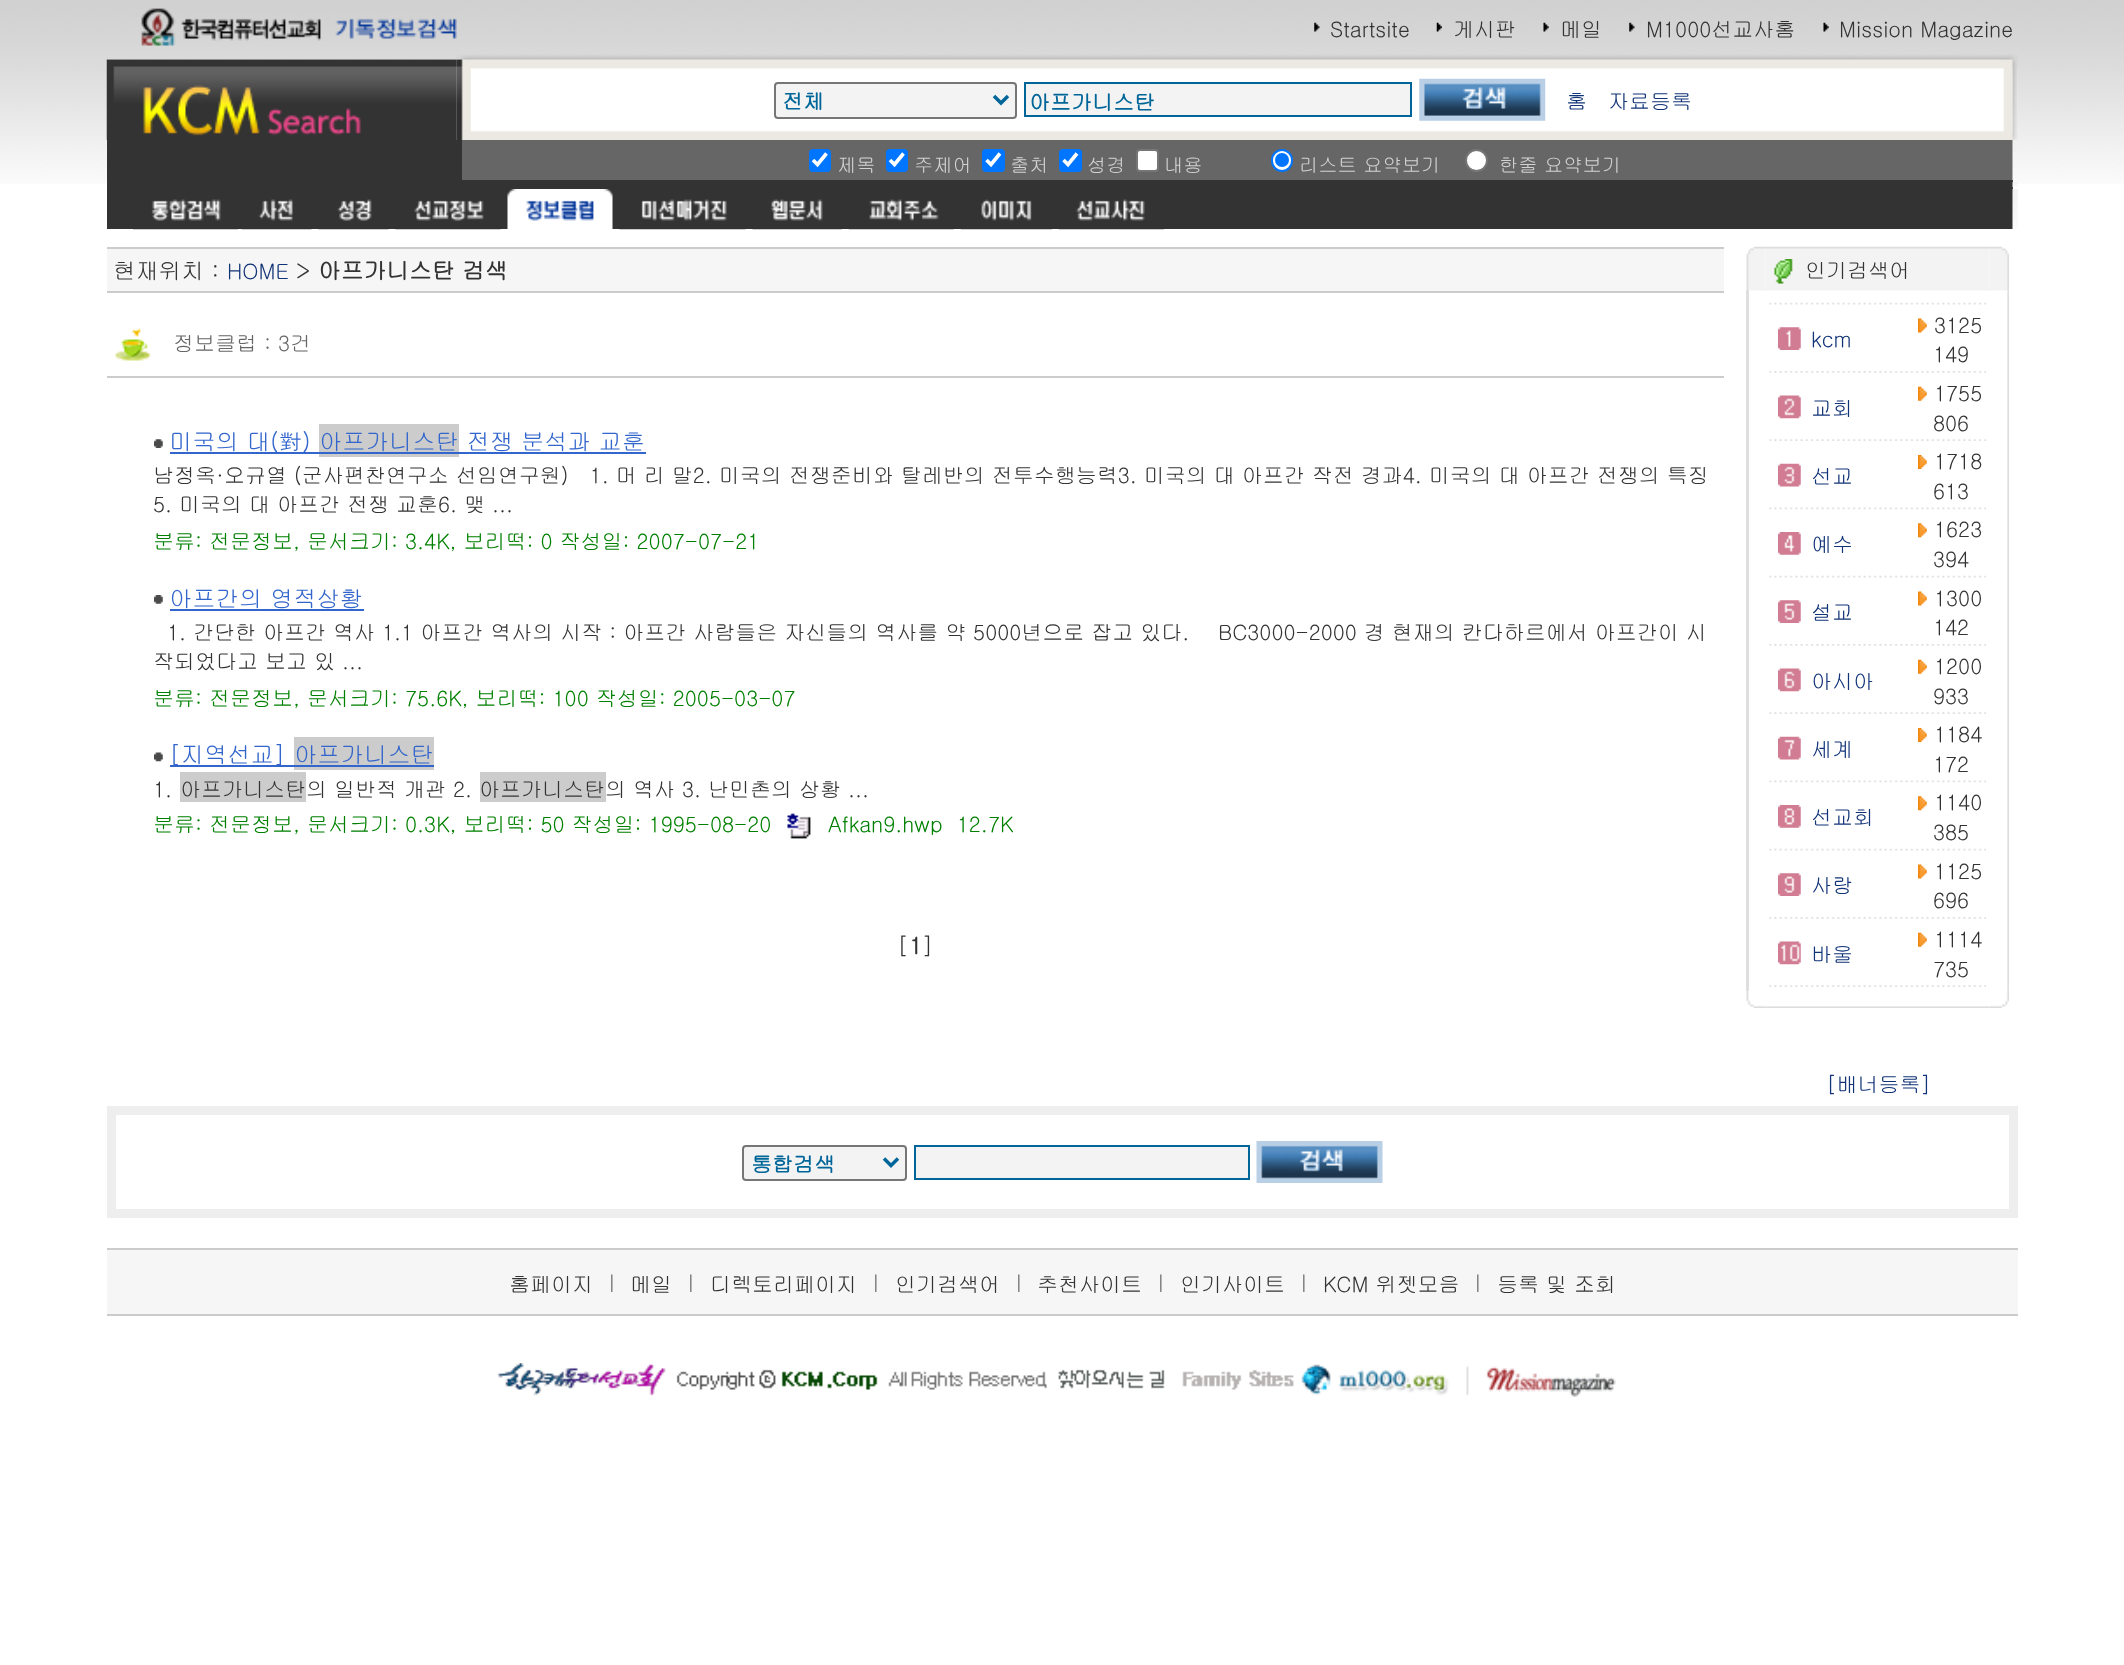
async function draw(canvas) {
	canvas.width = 2124;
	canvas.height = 1665;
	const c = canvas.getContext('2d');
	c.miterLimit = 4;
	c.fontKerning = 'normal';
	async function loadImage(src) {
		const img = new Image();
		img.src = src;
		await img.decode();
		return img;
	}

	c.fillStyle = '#fff';
	c.fillRect(0, 0, 2124, 1665);
	c.drawImage(await loadImage('img1.png'), 0, 0, 2124, 184);
	c.drawImage(await loadImage('img2.png'), 141, 8, 316, 38);
	c.drawImage(await loadImage('img3.png'), 1314, 22, 6, 10);
	c.font = '21px Gulim';
	c.fillStyle = '#333';
	c.fillText('Startsite', 1330, 37);
	c.drawImage(await loadImage('img4.png'), 1436, 22, 6, 10);
	c.fillText('게시판', 1453, 37);
	c.drawImage(await loadImage('img5.png'), 1543, 22, 6, 10);
	c.fillText('메일', 1560, 37);
	c.drawImage(await loadImage('img6.png'), 1629, 22, 6, 10);
	c.fillText('M1000선교사홈', 1646, 37);
	c.drawImage(await loadImage('img5.png'), 1823, 22, 6, 10);
	c.fillText('Mission Magazine', 1839, 37);
	c.drawImage(await loadImage('img8.png'), 456, 54, 1562, 86);
	c.drawImage(await loadImage('img7.png'), 106, 59, 351, 81);
	c.drawImage(await loadImage('img9.png'), 456, 55, 15, 85);
	c.fillStyle = '#f3f3f3';
	c.beginPath();
	c.roundRect(775, 83, 241, 35, 3);
	c.fill();
	c.strokeStyle = '#767676';
	c.lineWidth = 2;
	c.stroke();
	c.beginPath();
	c.moveTo(994, 96);
	c.lineTo(1001, 103);
	c.lineTo(1008, 96);
	c.strokeStyle = '#069';
	c.lineWidth = 3.5;
	c.stroke();
	c.font = 'bold 21px Gulim';
	c.fillStyle = '#069';
	c.fillText('전체', 782, 109);
	c.fillStyle = '#f3f3f3';
	c.beginPath();
	c.rect(1025, 83, 386, 33);
	c.fill();
	c.lineWidth = 2;
	c.stroke();
	c.fillStyle = '#069';
	c.fillText('아프가니스탄', 1029, 110);
	c.drawImage(await loadImage('img10.png'), 1419, 78, 127, 43);
	c.font = '21px Gulim';
	c.fillStyle = '#137';
	c.fillText('홈', 1566, 109);
	c.fillText('자료등록', 1608, 109);
	c.drawImage(await loadImage('img11.png'), 2003, 57, 10, 75);
	c.drawImage(await loadImage('img12.png'), 2012, 55, 6, 85);
	c.fillStyle = '#333';
	c.fillRect(107, 140, 355, 40);
	c.fillStyle = '#666';
	c.fillRect(462, 140, 1551, 40);
	c.fillStyle = '#0075ff';
	c.beginPath();
	c.roundRect(809, 149, 22, 23, 4);
	c.fill();
	c.beginPath();
	c.moveTo(813, 160);
	c.lineTo(817.5, 164.5);
	c.lineTo(826.5, 153.5);
	c.strokeStyle = '#fff';
	c.lineWidth = 3.6;
	c.stroke();
	c.font = '19.25px Gulim';
	c.fillStyle = '#d2d2d2';
	c.fillText('제목', 837, 172);
	c.fillStyle = '#0075ff';
	c.beginPath();
	c.roundRect(886, 149, 22, 23, 4);
	c.fill();
	c.beginPath();
	c.moveTo(890, 160);
	c.lineTo(894.5, 164.5);
	c.lineTo(903.5, 153.5);
	c.stroke();
	c.fillStyle = '#d2d2d2';
	c.fillText('주제어', 914, 172);
	c.fillStyle = '#0075ff';
	c.beginPath();
	c.roundRect(982, 149, 23, 23, 4);
	c.fill();
	c.beginPath();
	c.moveTo(986.5, 160);
	c.lineTo(991, 164.5);
	c.lineTo(1000, 153.5);
	c.stroke();
	c.fillStyle = '#d2d2d2';
	c.fillText('출처', 1010, 172);
	c.fillStyle = '#0075ff';
	c.beginPath();
	c.roundRect(1059, 149, 23, 23, 4);
	c.fill();
	c.beginPath();
	c.moveTo(1063.5, 160);
	c.lineTo(1068, 164.5);
	c.lineTo(1077, 153.5);
	c.stroke();
	c.fillStyle = '#d2d2d2';
	c.fillText('성경', 1087, 172);
	c.fillStyle = '#fff';
	c.beginPath();
	c.roundRect(1137, 150, 21, 21, 3);
	c.fill();
	c.strokeStyle = '#767676';
	c.lineWidth = 2;
	c.stroke();
	c.fillStyle = '#d2d2d2';
	c.fillText('내용', 1164, 172);
	c.fillStyle = '#fff';
	c.beginPath();
	c.roundRect(1272, 150, 20, 21, 10);
	c.fill();
	c.strokeStyle = '#0075ff';
	c.stroke();
	c.fillStyle = '#0075ff';
	c.beginPath();
	c.arc(1282, 160, 7, 0, 2 * Math.PI);
	c.fill();
	c.fillStyle = '#d2d2d2';
	c.fillText('리스트 요약보기', 1299, 172);
	c.fillStyle = '#fff';
	c.beginPath();
	c.arc(1476.5, 160.5, 10.5, 0, 2 * Math.PI);
	c.fill();
	c.strokeStyle = '#767676';
	c.stroke();
	c.fillStyle = '#d2d2d2';
	c.fillText('한줄 요약보기', 1499, 172);
	c.fillStyle = '#333';
	c.fillRect(107, 180, 1906, 49);
	c.drawImage(await loadImage('img13.png'), 2012, 140, 1, 41);
	c.drawImage(await loadImage('img14.png'), 2012, 182, 6, 6);
	c.drawImage(await loadImage('img15.png'), 133, 199, 105, 31);
	c.drawImage(await loadImage('img16.png'), 241, 199, 71, 31);
	c.drawImage(await loadImage('img17.png'), 318, 199, 71, 31);
	c.drawImage(await loadImage('img18.png'), 395, 200, 106, 30);
	c.drawImage(await loadImage('img19.png'), 507, 189, 106, 40);
	c.drawImage(await loadImage('img20.png'), 619, 199, 127, 31);
	c.drawImage(await loadImage('img21.png'), 752, 199, 90, 31);
	c.drawImage(await loadImage('img22.png'), 848, 199, 106, 31);
	c.drawImage(await loadImage('img23.png'), 960, 199, 92, 31);
	c.drawImage(await loadImage('img24.png'), 1058, 199, 106, 31);
	c.drawImage(await loadImage('img25.png'), 2012, 189, 6, 40);
	c.fillStyle = '#ccc';
	c.fillRect(107, 247, 1617, 2);
	c.fillStyle = '#f6f6f6';
	c.fillRect(107, 249, 1617, 42);
	c.font = '22.75px Gulim';
	c.fillStyle = '#333';
	c.fillText('현재위치 :', 113, 279);
	c.font = '21px Gulim';
	c.fillStyle = '#137';
	c.fillText('HOME', 227, 279);
	c.font = '22.75px Gulim';
	c.fillStyle = '#333';
	c.fillText('>', 296, 279);
	c.font = 'bold 22.75px Gulim';
	c.fillText('아프가니스탄 검색', 318, 279);
	c.fillStyle = '#ccc';
	c.fillRect(107, 291, 1617, 2);
	c.drawImage(await loadImage('img26.png'), 115, 328, 36, 33);
	c.font = '21px Gulim';
	c.fillStyle = '#666';
	c.fillText('정보클럽 : 3건', 173, 351);
	c.fillStyle = '#ccc';
	c.fillRect(107, 376, 1617, 2);
	c.drawImage(await loadImage('img27.png'), 154, 439, 9, 9);
	c.fillStyle = '#36c';
	c.fillRect(170, 452, 149, 2);
	c.font = '23.3px Gulim';
	c.fillText('미국의 대(對)', 169, 450);
	c.fillStyle = '#ccc';
	c.fillRect(319, 424, 140, 33);
	c.fillStyle = '#36c';
	c.fillText('아프가니스탄 전쟁 분석과 교훈', 319, 450);
	c.fillRect(319, 452, 327, 2);
	c.font = '21px Gulim';
	c.fillStyle = '#333';
	c.fillText('남정옥·오규열 (군사편찬연구소 선임연구원)   1. 머 리 말2. 미국의 전쟁준비와 탈레반의 전투수행능력3. 미국의 대 아프간 작전 경과4. 미국의 대 아프간 전쟁의 특징', 153, 483);
	c.fillText('5. 미국의 대 아프간 전쟁 교훈6. 맺 ...', 153, 512);
	c.fillStyle = '#008000';
	c.fillText('분류: 전문정보, 문서크기: 3.4K, 보리떡: 0 작성일: 2007-07-21', 153, 549);
	c.drawImage(await loadImage('img28.png'), 154, 595, 9, 9);
	c.font = '23.3px Gulim';
	c.fillStyle = '#36c';
	c.fillText('아프간의 영적상황', 169, 607);
	c.fillRect(170, 609, 194, 2);
	c.font = '21px Gulim';
	c.fillStyle = '#333';
	for (const [text, x, y] of [
		['1. 간단한 아프간 역사 1.1 아프간 역사의 시작 : 아프간 사람들은 자신들의 역사를 약 5000년으로 잡고 있다.', 167, 640],
		['BC3000-2000 경 현재의 칸다하르에서 아프간이 시', 1218, 640],
		['작되었다고 보고 있 ...', 153, 669],
	]) {
		c.fillText(text, x, y);
	}
	c.fillStyle = '#008000';
	c.fillText('분류: 전문정보, 문서크기: 75.6K, 보리떡: 100 작성일: 2005-03-07', 153, 706);
	c.drawImage(await loadImage('img29.png'), 154, 752, 9, 10);
	c.fillStyle = '#36c';
	c.fillRect(170, 765, 124, 2);
	c.font = '23.3px Gulim';
	c.fillText('[지역선교]', 169, 763);
	c.fillStyle = '#ccc';
	c.fillRect(294, 737, 140, 33);
	c.fillStyle = '#36c';
	c.fillText('아프가니스탄', 294, 763);
	c.fillRect(294, 765, 140, 2);
	c.font = '21px Gulim';
	c.fillStyle = '#333';
	c.fillText('1.', 153, 797);
	c.fillStyle = '#ccc';
	c.fillRect(180, 772, 126, 30);
	c.fillStyle = '#333';
	c.fillText('아프가니스탄의 일반적 개관 2.', 180, 797);
	c.fillStyle = '#ccc';
	c.fillRect(480, 772, 126, 30);
	c.fillStyle = '#333';
	c.fillText('아프가니스탄의 역사 3. 난민촌의 상황 ...', 479, 797);
	c.fillStyle = '#008000';
	c.fillText('분류: 전문정보, 문서크기: 0.3K, 보리떡: 50 작성일: 1995-08-20', 153, 832);
	c.drawImage(await loadImage('img30.png'), 787, 813, 24, 26);
	c.fillText('Afkan9.hwp  12.7K', 828, 832);
	c.font = '22.75px Gulim';
	c.fillStyle = '#333';
	c.fillText('[', 897, 954);
	c.font = 'bold 22.75px Gulim';
	c.fillText('1', 909, 954);
	c.font = '22.75px Gulim';
	c.fillText(']', 922, 954);
	c.drawImage(await loadImage('img32.png'), 1765, 246, 225, 45);
	c.fillStyle = '#dfdfdf';
	c.fillRect(1746, 290, 3, 701);
	c.drawImage(await loadImage('img31.png'), 1746, 246, 20, 45);
	c.drawImage(await loadImage('img33.png'), 1774, 259, 19, 25);
	c.font = '21px Gulim';
	c.fillStyle = '#333';
	c.fillText('인기검색어', 1805, 278);
	c.drawImage(await loadImage('img55.png'), 2007, 290, 2, 701);
	c.drawImage(await loadImage('img34.png'), 1990, 246, 19, 45);
	c.drawImage(await loadImage('img35.png'), 1769, 302, 217, 3);
	c.drawImage(await loadImage('img36.png'), 1778, 327, 23, 23);
	c.fillStyle = '#137';
	c.fillText('kcm', 1811, 347);
	c.drawImage(await loadImage('img37.png'), 1918, 318, 9, 15);
	c.fillStyle = '#333';
	c.fillText('3125', 1934, 333);
	c.fillText('149', 1933, 362);
	c.drawImage(await loadImage('img38.png'), 1769, 371, 217, 2);
	c.drawImage(await loadImage('img39.png'), 1778, 395, 23, 24);
	c.fillStyle = '#137';
	c.fillText('교회', 1811, 416);
	c.drawImage(await loadImage('img40.png'), 1918, 386, 9, 15);
	c.fillStyle = '#333';
	c.fillText('1755', 1934, 401);
	c.fillText('806', 1933, 431);
	c.drawImage(await loadImage('img41.png'), 1769, 439, 217, 2);
	c.drawImage(await loadImage('img42.png'), 1778, 463, 23, 24);
	c.fillStyle = '#137';
	c.fillText('선교', 1811, 484);
	c.drawImage(await loadImage('img43.png'), 1918, 455, 9, 14);
	c.fillStyle = '#333';
	c.fillText('1718', 1934, 469);
	c.fillText('613', 1933, 499);
	c.drawImage(await loadImage('img44.png'), 1769, 507, 217, 3);
	c.drawImage(await loadImage('img45.png'), 1778, 532, 23, 23);
	c.fillStyle = '#137';
	c.fillText('예수', 1811, 552);
	c.drawImage(await loadImage('img46.png'), 1918, 523, 9, 15);
	c.fillStyle = '#333';
	c.fillText('1623', 1934, 537);
	c.fillText('394', 1933, 567);
	c.drawImage(await loadImage('img35.png'), 1769, 575, 217, 3);
	c.drawImage(await loadImage('img47.png'), 1778, 600, 23, 23);
	c.fillStyle = '#137';
	c.fillText('설교', 1811, 620);
	c.drawImage(await loadImage('img37.png'), 1918, 591, 9, 15);
	c.fillStyle = '#333';
	c.fillText('1300', 1934, 606);
	c.fillText('142', 1933, 635);
	c.drawImage(await loadImage('img38.png'), 1769, 644, 217, 2);
	c.drawImage(await loadImage('img48.png'), 1778, 668, 23, 24);
	c.fillStyle = '#137';
	c.fillText('아시아', 1811, 689);
	c.drawImage(await loadImage('img40.png'), 1918, 659, 9, 15);
	c.fillStyle = '#333';
	c.fillText('1200', 1934, 674);
	c.fillText('933', 1933, 704);
	c.drawImage(await loadImage('img49.png'), 1769, 712, 217, 2);
	c.drawImage(await loadImage('img50.png'), 1778, 736, 23, 24);
	c.fillStyle = '#137';
	c.fillText('세계', 1811, 757);
	c.drawImage(await loadImage('img43.png'), 1918, 728, 9, 14);
	c.fillStyle = '#333';
	c.fillText('1184', 1934, 742);
	c.fillText('172', 1933, 772);
	c.drawImage(await loadImage('img51.png'), 1769, 780, 217, 3);
	c.drawImage(await loadImage('img52.png'), 1778, 805, 23, 23);
	c.fillStyle = '#137';
	c.fillText('선교회', 1811, 825);
	c.drawImage(await loadImage('img46.png'), 1918, 796, 9, 15);
	c.fillStyle = '#333';
	c.fillText('1140', 1934, 810);
	c.fillText('385', 1933, 840);
	c.drawImage(await loadImage('img35.png'), 1769, 848, 217, 3);
	c.drawImage(await loadImage('img53.png'), 1778, 873, 23, 23);
	c.fillStyle = '#137';
	c.fillText('사랑', 1811, 893);
	c.drawImage(await loadImage('img37.png'), 1918, 864, 9, 15);
	c.fillStyle = '#333';
	c.fillText('1125', 1934, 879);
	c.fillText('696', 1933, 908);
	c.drawImage(await loadImage('img38.png'), 1769, 917, 217, 2);
	c.drawImage(await loadImage('img54.png'), 1778, 941, 23, 24);
	c.fillStyle = '#137';
	c.fillText('바울', 1811, 962);
	c.drawImage(await loadImage('img40.png'), 1918, 932, 9, 15);
	c.fillStyle = '#333';
	c.fillText('1114', 1934, 947);
	c.fillText('735', 1933, 977);
	c.drawImage(await loadImage('img49.png'), 1769, 985, 217, 2);
	c.drawImage(await loadImage('img57.png'), 1765, 1006, 225, 2);
	c.drawImage(await loadImage('img56.png'), 1746, 990, 20, 18);
	c.drawImage(await loadImage('img58.png'), 1990, 990, 19, 18);
	c.fillStyle = '#137';
	c.fillText('[배너등록]', 1826, 1092);
	c.strokeStyle = '#eee';
	c.lineWidth = 9;
	c.strokeRect(111.5, 1110.5, 1902, 103);
	c.fillStyle = '#f3f3f3';
	c.beginPath();
	c.roundRect(743, 1146, 163, 34, 3);
	c.fill();
	c.strokeStyle = '#767676';
	c.lineWidth = 2;
	c.stroke();
	c.beginPath();
	c.moveTo(884, 1158.5);
	c.lineTo(891, 1165.5);
	c.lineTo(898, 1158.5);
	c.strokeStyle = '#069';
	c.lineWidth = 3.5;
	c.stroke();
	c.font = 'bold 21px Gulim';
	c.fillStyle = '#069';
	c.fillText('통합검색', 751, 1172);
	c.fillStyle = '#f3f3f3';
	c.beginPath();
	c.rect(915, 1146, 334, 33);
	c.fill();
	c.lineWidth = 2;
	c.stroke();
	c.drawImage(await loadImage('img59.png'), 1256, 1141, 127, 42);
	for (const [x, y, w, h, color] of [
		[107, 1250, 1911, 64, '#f6f6f6'],
		[107, 1248, 1911, 2, '#ccc'],
		[107, 1314, 1911, 2, '#ccc'],
	]) {
		c.fillStyle = color;
		c.fillRect(x, y, w, h);
	}
	c.font = '21px Gulim';
	c.fillStyle = '#333';
	c.fillText('홈페이지', 509, 1292);
	c.font = '19.25px Gulim';
	c.fillStyle = '#666';
	c.fillText('|', 607, 1290);
	c.font = '21px Gulim';
	c.fillStyle = '#333';
	c.fillText('메일', 630, 1292);
	c.font = '19.25px Gulim';
	c.fillStyle = '#666';
	c.fillText('|', 686, 1290);
	c.font = '21px Gulim';
	c.fillStyle = '#333';
	c.fillText('디렉토리페이지', 710, 1292);
	c.font = '19.25px Gulim';
	c.fillStyle = '#666';
	c.fillText('|', 871, 1290);
	c.font = '21px Gulim';
	c.fillStyle = '#333';
	c.fillText('인기검색어', 895, 1292);
	c.font = '19.25px Gulim';
	c.fillStyle = '#666';
	c.fillText('|', 1014, 1290);
	c.font = '21px Gulim';
	c.fillStyle = '#333';
	c.fillText('추천사이트', 1037, 1292);
	c.font = '19.25px Gulim';
	c.fillStyle = '#666';
	c.fillText('|', 1156, 1290);
	c.font = '21px Gulim';
	c.fillStyle = '#333';
	c.fillText('인기사이트', 1180, 1292);
	c.font = '19.25px Gulim';
	c.fillStyle = '#666';
	c.fillText('|', 1299, 1290);
	c.font = '21px Gulim';
	c.fillStyle = '#333';
	c.fillText('KCM 위젯모음', 1323, 1292);
	c.font = '19.25px Gulim';
	c.fillStyle = '#666';
	c.fillText('|', 1473, 1290);
	c.font = '21px Gulim';
	c.fillStyle = '#333';
	c.fillText('등록 및 조회', 1497, 1292);
	c.drawImage(await loadImage('img60.png'), 497, 1363, 1119, 34);
}

draw(document.querySelector('canvas'));
